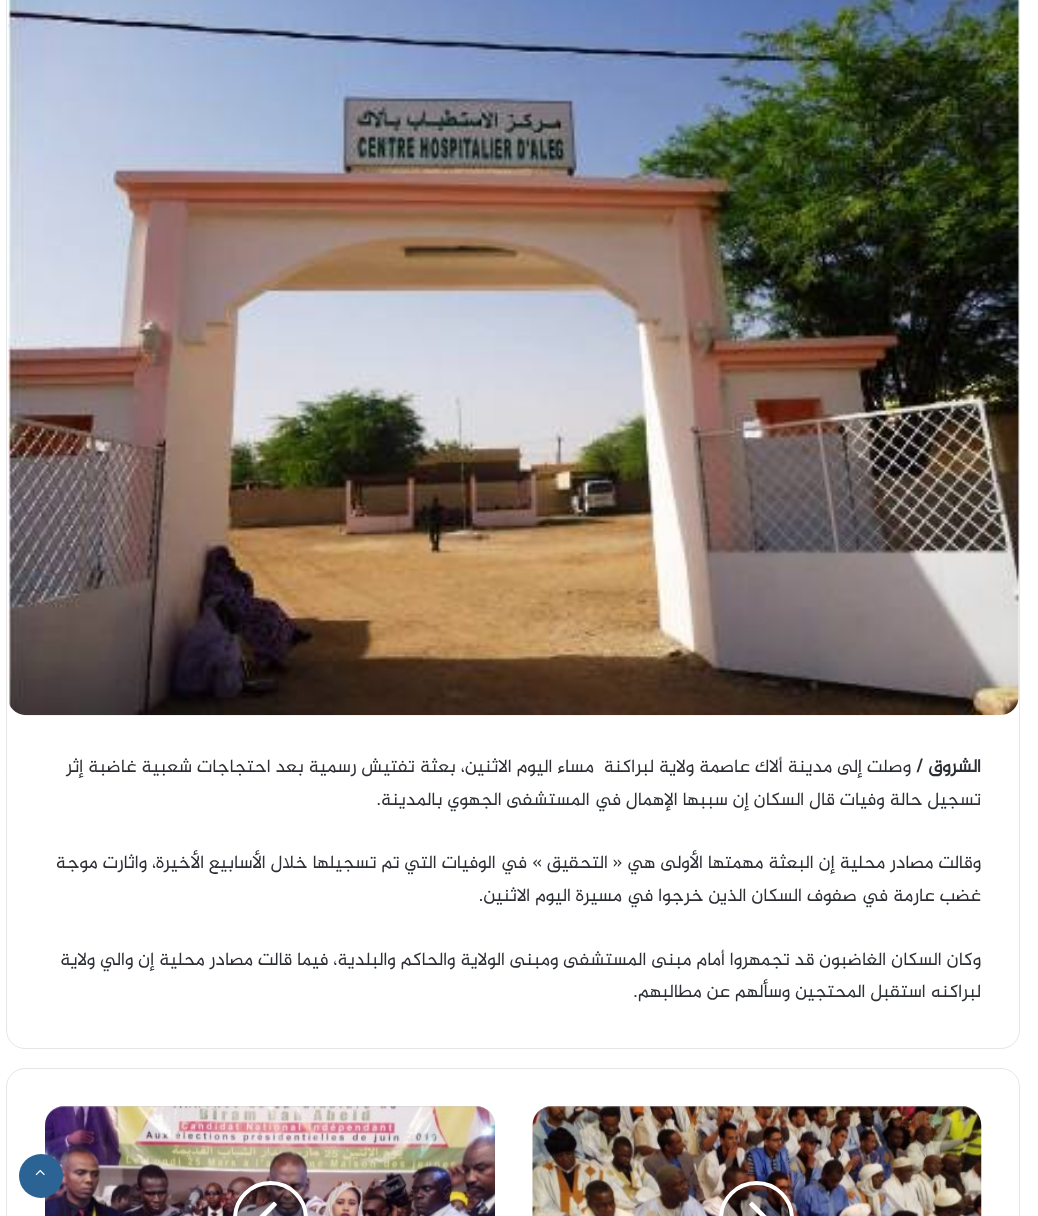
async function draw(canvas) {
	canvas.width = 1038;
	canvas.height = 1216;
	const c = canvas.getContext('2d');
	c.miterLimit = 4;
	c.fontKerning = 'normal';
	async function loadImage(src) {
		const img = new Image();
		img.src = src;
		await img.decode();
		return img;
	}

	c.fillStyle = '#fff';
	c.fillRect(0, 0, 1038, 1216);
	c.beginPath();
	c.roundRect(6.5, -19.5, 1013, 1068, 18.5);
	c.strokeStyle = '#e6e6e6';
	c.stroke();
	c.drawImage(await loadImage('img1.png'), 7, 0, 1012, 716);
	c.direction = 'rtl';
	c.font = 'bold 18.75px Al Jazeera';
	c.fillStyle = '#2c2f34';
	c.fillText('الشروق /', 981, 772);
	c.font = '18.75px Al Jazeera';
	for (const [text, x, y] of [
		['وصلت إلى مدينة ألاك عاصمة ولاية لبراكنة  مساء اليوم الاثنين، بعثة تفتيش رسمية بعد احتجاجات شعبية غاضبة إثر', 911, 772],
		['تسجيل حالة وفيات قال السكان إن سببها الإهمال في المستشفى الجهوي بالمدينة.', 981, 805],
		['وقالت مصادر محلية إن البعثة مهمتها الأولى هي « التحقيق » في الوفيات التي تم تسجيلها خلال الأسابيع الأخيرة، واثارت موجة', 981, 868],
		['غضب عارمة في صفوف السكان الذين خرجوا في مسيرة اليوم الاثنين.', 981, 901],
		['وكان السكان الغاضبون قد تجمهروا أمام مبنى المستشفى ومبنى الولاية والحاكم والبلدية، فيما قالت مصادر محلية إن والي ولاية', 981, 965],
		['لبراكنه استقبل المحتجين وسألهم عن مطالبهم.', 981, 997],
	]) {
		c.fillText(text, x, y);
	}
	c.beginPath();
	c.roundRect(6.5, 1068.5, 1013, 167, 18.5);
	c.stroke();
	c.fillStyle = '#ccc';
	c.beginPath();
	c.roundRect(533, 1106, 448, 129, 19);
	c.fill();
	c.drawImage(await loadImage('img2.png'), 532, 1106, 450, 110);
	c.fillStyle = '#0000004d';
	c.beginPath();
	c.arc(756.5, 1218.5, 35.5, 0, 2 * Math.PI);
	c.fill();
	c.strokeStyle = '#fff';
	c.lineWidth = 4;
	c.stroke();
	c.drawImage(await loadImage('img3.png'), 749, 1201, 18, 15);
	c.fillStyle = '#ccc';
	c.beginPath();
	c.roundRect(45, 1106, 450, 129, 19);
	c.fill();
	c.drawImage(await loadImage('img4.png'), 45, 1106, 450, 110);
	c.fillStyle = '#0000004d';
	c.beginPath();
	c.arc(270.5, 1218.5, 35.5, 0, 2 * Math.PI);
	c.fill();
	c.stroke();
	c.drawImage(await loadImage('img5.png'), 259, 1201, 18, 15);
	c.fillStyle = '#2b6394';
	c.beginPath();
	c.arc(41, 1176, 22, 0, 2 * Math.PI);
	c.fill();
	c.drawImage(await loadImage('img6.png'), 35, 1169, 10, 7);
}

draw(document.querySelector('canvas'));
